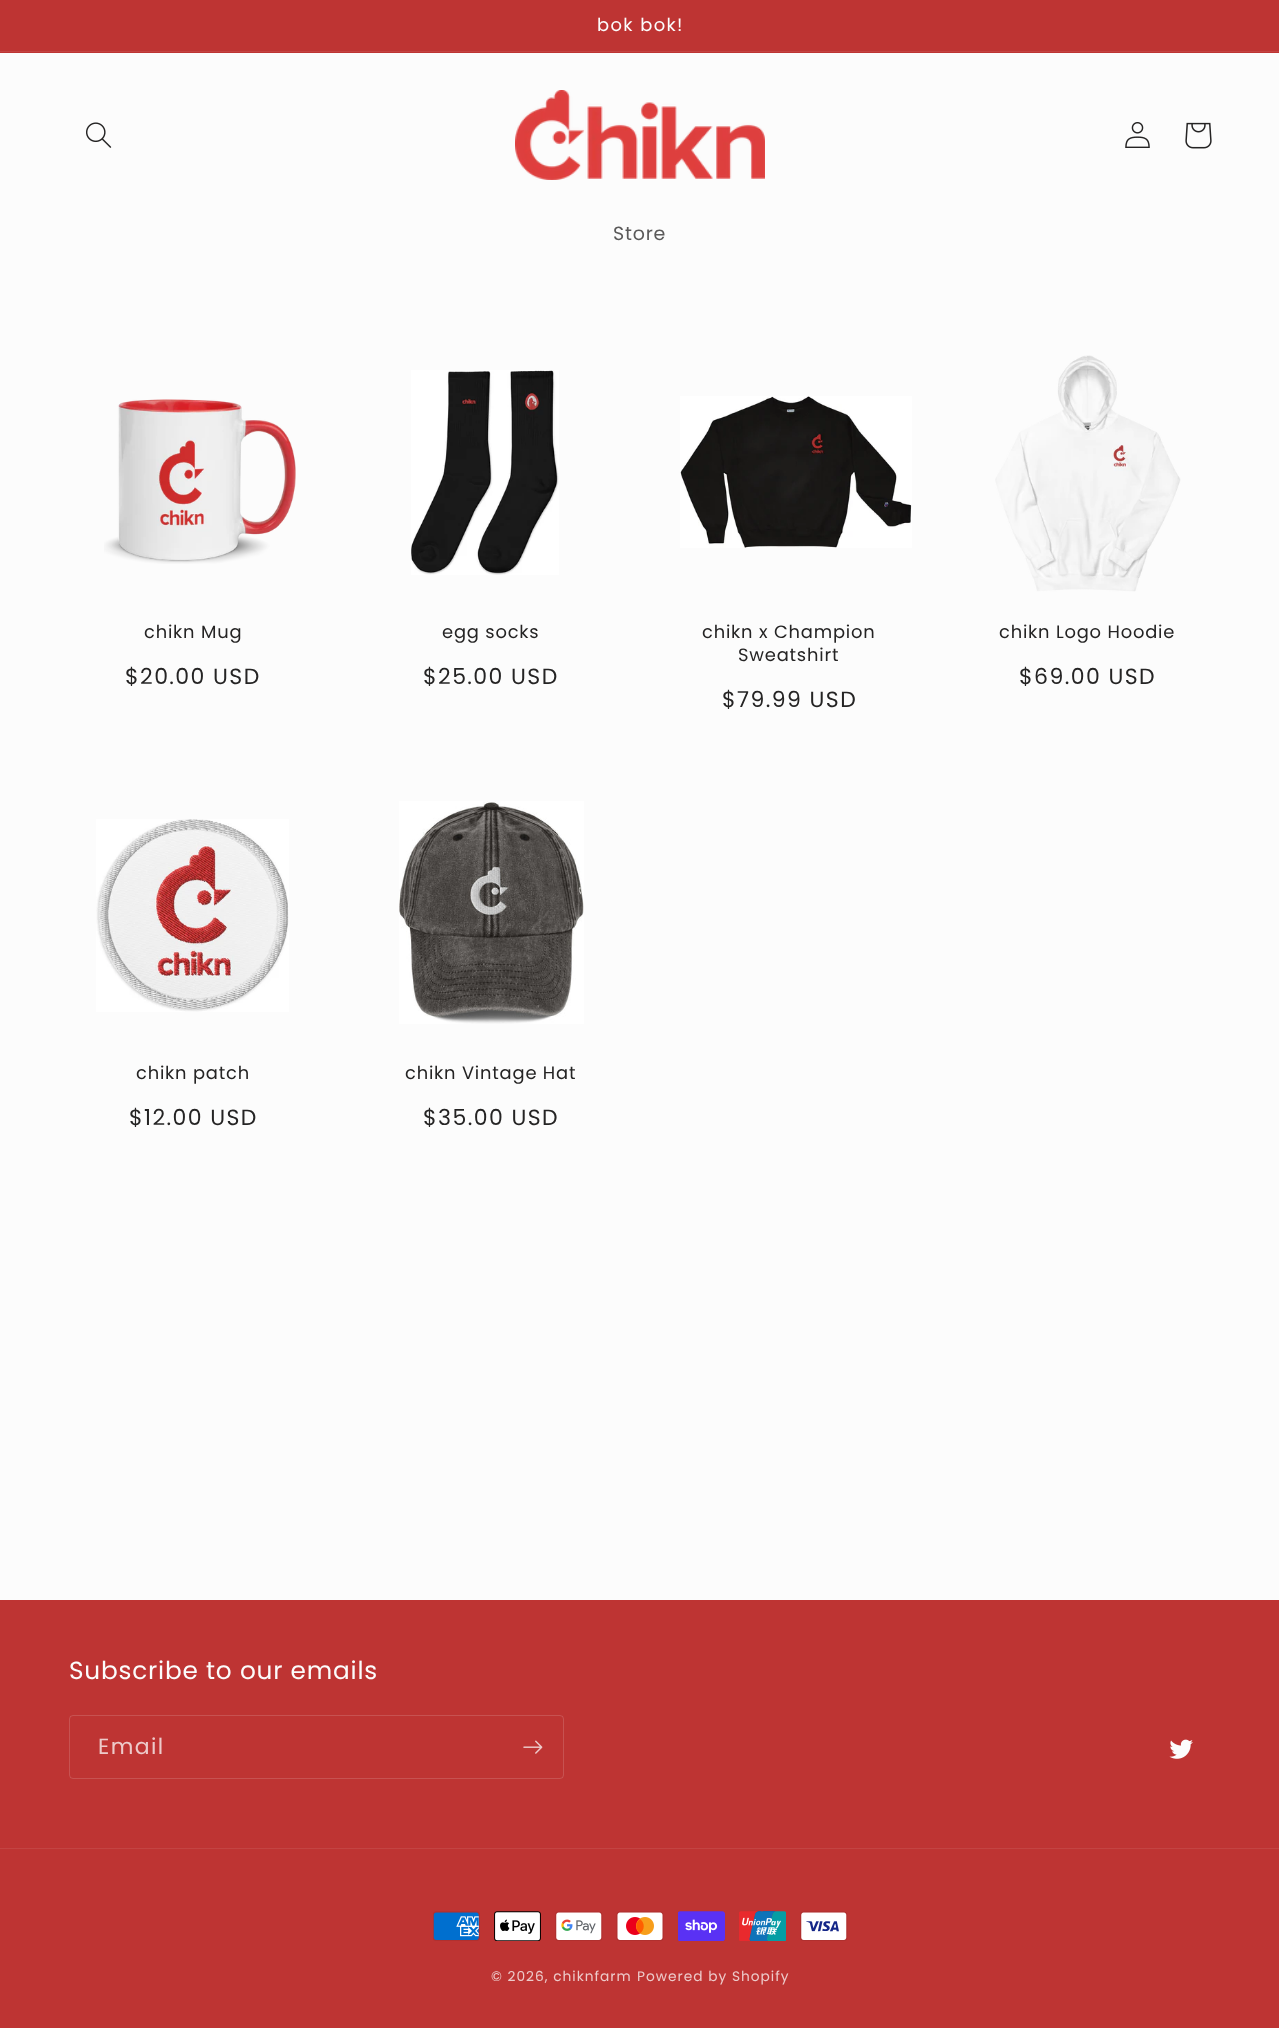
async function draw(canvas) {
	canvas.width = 1279;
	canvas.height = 2028;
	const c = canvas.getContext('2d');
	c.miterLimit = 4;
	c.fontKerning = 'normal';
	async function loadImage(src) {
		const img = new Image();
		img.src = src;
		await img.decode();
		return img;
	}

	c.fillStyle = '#fcfcfc';
	c.fillRect(0, 0, 1279, 2028);
	c.fillStyle = '#be3433';
	c.fillRect(0, 0, 1279, 53);
	c.fillStyle = '#c34443';
	c.fillRect(0, 51, 1279, 1);
	c.letterSpacing = '1.4px';
	c.font = '17.9px Poppins';
	c.fillStyle = '#fcfcfc';
	c.fillText('bok bok!', 597, 31);
	c.drawImage(await loadImage('img1.png'), 86, 122, 26, 26);
	c.drawImage(await loadImage('img2.png'), 515, 90, 250, 90);
	c.drawImage(await loadImage('img3.png'), 1125, 122, 25, 26);
	c.drawImage(await loadImage('img4.png'), 1185, 122, 27, 27);
	c.letterSpacing = '0.8px';
	c.font = '19px Poppins';
	c.fillStyle = '#5b5a5a';
	c.fillText('Store', 613, 240);
	c.drawImage(await loadImage('img5.png'), 104, 399, 192, 165);
	c.font = '17.9px Poppins';
	c.fillStyle = '#252424';
	c.fillText('chikn Mug', 144, 638);
	c.letterSpacing = '1.4px';
	c.font = '22px Poppins';
	c.fillText('$20.00 USD', 125, 684);
	c.drawImage(await loadImage('img6.png'), 411, 370, 148, 205);
	c.letterSpacing = '0.8px';
	c.font = '17.9px Poppins';
	c.fillText('egg socks', 442, 638);
	c.letterSpacing = '1.4px';
	c.font = '22px Poppins';
	c.fillText('$25.00 USD', 423, 684);
	c.drawImage(await loadImage('img7.png'), 680, 396, 232, 152);
	c.letterSpacing = '0.8px';
	c.font = '17.9px Poppins';
	c.fillText('chikn x Champion', 702, 638);
	c.fillText('Sweatshirt', 738, 661);
	c.letterSpacing = '1.4px';
	c.font = '22px Poppins';
	c.fillText('$79.99 USD', 722, 707);
	c.drawImage(await loadImage('img8.png'), 995, 355, 186, 237);
	c.letterSpacing = '0.8px';
	c.font = '17.9px Poppins';
	c.fillText('chikn Logo Hoodie', 999, 638);
	c.letterSpacing = '1.4px';
	c.font = '22px Poppins';
	c.fillText('$69.00 USD', 1019, 684);
	c.drawImage(await loadImage('img9.png'), 96, 819, 193, 193);
	c.letterSpacing = '0.8px';
	c.font = '17.9px Poppins';
	c.fillText('chikn patch', 136, 1079);
	c.letterSpacing = '1.4px';
	c.font = '22px Poppins';
	c.fillText('$12.00 USD', 129, 1125);
	c.drawImage(await loadImage('img10.png'), 399, 801, 185, 223);
	c.letterSpacing = '0.8px';
	c.font = '17.9px Poppins';
	c.fillText('chikn Vintage Hat', 405, 1079);
	c.letterSpacing = '1.4px';
	c.font = '22px Poppins';
	c.fillText('$35.00 USD', 423, 1125);
	c.fillStyle = '#be3433';
	c.fillRect(0, 1600, 1279, 428);
	c.letterSpacing = '0.8px';
	c.font = '24.75px Poppins';
	c.fillStyle = '#fcfcfc';
	c.fillText('Subscribe to our emails', 69, 1679);
	c.beginPath();
	c.roundRect(69.5, 1715.5, 494, 63, 3.5);
	c.strokeStyle = '#fcfcfc26';
	c.stroke();
	c.letterSpacing = '1.4px';
	c.font = '22px Poppins';
	c.fillStyle = '#edcaca';
	c.fillText('Email', 98, 1754);
	c.drawImage(await loadImage('img11.png'), 523, 1740, 20, 14);
	c.drawImage(await loadImage('img12.png'), 1169, 1739, 24, 20);
	c.fillStyle = '#c34443';
	c.fillRect(0, 1848, 1279, 1);
	c.drawImage(await loadImage('img13.png'), 433, 1911, 47, 30);
	c.drawImage(await loadImage('img14.png'), 494, 1911, 47, 30);
	c.drawImage(await loadImage('img15.png'), 555, 1911, 48, 30);
	c.drawImage(await loadImage('img16.png'), 616, 1911, 48, 30);
	c.drawImage(await loadImage('img17.png'), 678, 1911, 47, 30);
	c.drawImage(await loadImage('img18.png'), 739, 1911, 47, 30);
	c.drawImage(await loadImage('img19.png'), 800, 1911, 48, 30);
	c.letterSpacing = '1px';
	c.font = '13.75px Poppins';
	c.fillStyle = '#edcaca';
	c.fillText('© 2026, chiknfarm', 491, 1981);
	c.fillText('Powered by Shopify', 637, 1981);
}

draw(document.querySelector('canvas'));
